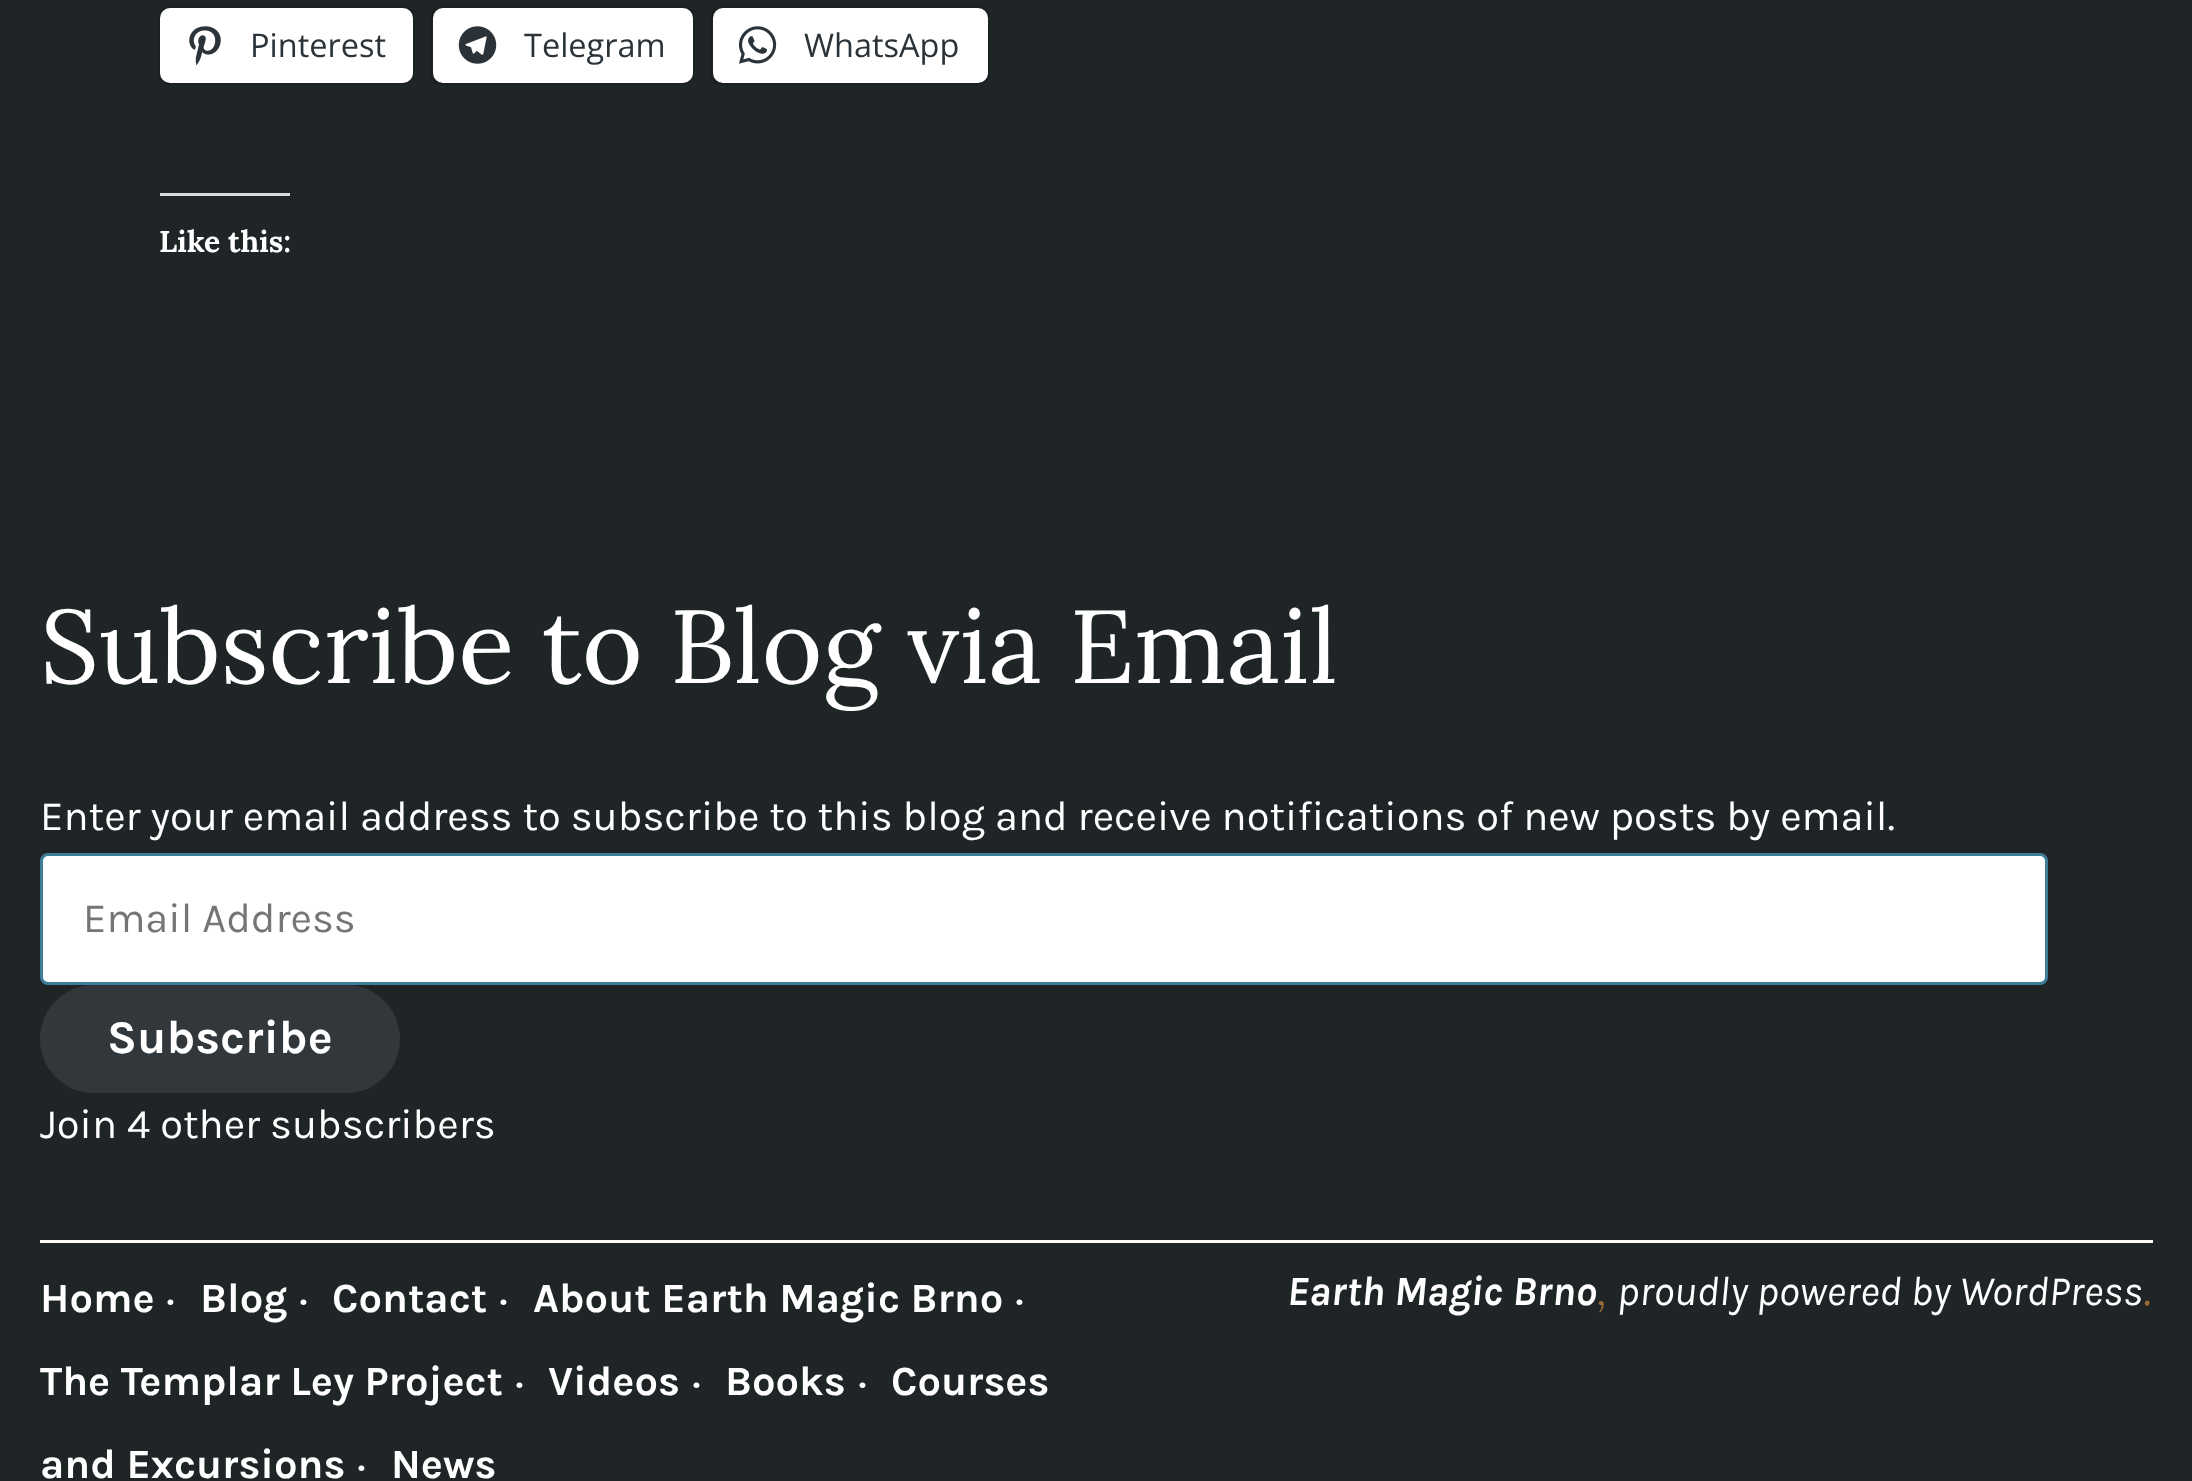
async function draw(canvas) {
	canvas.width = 2192;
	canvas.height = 1481;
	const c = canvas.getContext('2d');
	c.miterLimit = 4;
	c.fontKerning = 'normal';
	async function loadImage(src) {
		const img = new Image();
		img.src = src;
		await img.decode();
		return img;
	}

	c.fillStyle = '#1f2527';
	c.fillRect(0, 0, 2192, 1481);
	c.beginPath();
	c.roundRect(159.5, 6.5, 254, 77, 11.5);
	c.strokeStyle = '#1b2122';
	c.lineWidth = 3;
	c.stroke();
	c.fillStyle = '#fff';
	c.beginPath();
	c.roundRect(160, 8, 253, 75, 10);
	c.fill();
	c.drawImage(await loadImage('img1.png'), 189, 26, 32, 40);
	c.font = '32.5px Open Sans';
	c.fillStyle = '#2c3338';
	c.fillText('Pinterest', 250, 57);
	c.beginPath();
	c.roundRect(431.5, 6.5, 262, 77, 11.5);
	c.stroke();
	c.fillStyle = '#fff';
	c.beginPath();
	c.roundRect(433, 8, 260, 75, 10);
	c.fill();
	c.drawImage(await loadImage('img2.png'), 458, 26, 39, 38);
	c.fillStyle = '#2c3338';
	c.fillText('Telegram', 524, 57);
	c.beginPath();
	c.roundRect(711.5, 6.5, 277, 77, 11.5);
	c.stroke();
	c.fillStyle = '#fff';
	c.beginPath();
	c.roundRect(713, 8, 275, 75, 10);
	c.fill();
	c.drawImage(await loadImage('img3.png'), 738, 26, 39, 38);
	c.fillStyle = '#2c3338';
	c.fillText('WhatsApp', 804, 57);
	c.fillStyle = '#dcdcde';
	c.fillRect(160, 193, 130, 3);
	c.font = 'bold 30px Lora';
	c.fillStyle = '#fff';
	c.fillText('Like this:', 159, 252);
	c.fillStyle = '#fcfbf9';
	c.fillRect(40, 1240, 2113, 3);
	c.font = '103.75px Lora';
	c.fillStyle = '#fff';
	c.fillText('Subscribe to Blog via Email', 40, 683);
	c.font = '41.65px Karla';
	c.fillText('Enter your email address to subscribe to this blog and receive notifications of new posts by email.', 40, 830);
	c.beginPath();
	c.roundRect(41.5, 854.5, 2005, 129, 6.5);
	c.fill();
	c.strokeStyle = '#3e7d98';
	c.stroke();
	c.fillStyle = '#757575';
	c.fillText('Email Address', 83, 932);
	c.fillStyle = '#32373c';
	c.beginPath();
	c.roundRect(40, 985, 360, 108, 54);
	c.fill();
	c.font = 'bold 47px Karla';
	c.fillStyle = '#fff';
	c.fillText('Subscribe', 107, 1053);
	c.font = '41.65px Karla';
	c.fillText('Join 4 other subscribers', 40, 1138);
	c.font = 'bold 41.65px Karla';
	c.fillText('Home', 40, 1312);
	c.font = '50px Karla';
	c.fillText('·', 166, 1315);
	c.font = 'bold 41.65px Karla';
	c.fillText('Blog', 200, 1312);
	c.font = '50px Karla';
	c.fillText('·', 299, 1315);
	c.font = 'bold 41.65px Karla';
	c.fillText('Contact', 332, 1312);
	c.font = '50px Karla';
	c.fillText('·', 499, 1315);
	c.font = 'bold 41.65px Karla';
	c.fillText('About Earth Magic Brno', 533, 1312);
	c.font = '50px Karla';
	c.fillText('·', 1015, 1315);
	c.font = 'bold 41.65px Karla';
	c.fillText('The Templar Ley Project', 40, 1395);
	c.font = '50px Karla';
	c.fillText('·', 515, 1398);
	c.font = 'bold 41.65px Karla';
	c.fillText('Videos', 548, 1395);
	c.font = '50px Karla';
	c.fillText('·', 692, 1398);
	c.font = 'bold 41.65px Karla';
	c.fillText('Books', 725, 1395);
	c.font = '50px Karla';
	c.fillText('·', 858, 1398);
	c.font = 'bold 41.65px Karla';
	c.fillText('Courses', 891, 1395);
	c.fillText('and Excursions', 40, 1478);
	c.font = '50px Karla';
	c.fillText('·', 357, 1481);
	c.font = 'bold 41.65px Karla';
	c.fillText('News', 391, 1478);
	c.font = 'italic bold 41.65px Karla';
	c.fillText('Earth Magic Brno', 1287, 1305);
	c.font = 'italic 41.65px Lora';
	c.fillStyle = '#9b6a36';
	c.fillText(',', 1597, 1305);
	c.font = 'italic 41.65px Karla';
	c.fillStyle = '#fff';
	c.fillText('proudly powered by WordPress', 1617, 1305);
	c.font = 'italic 41.65px Lora';
	c.fillStyle = '#9b6a36';
	c.fillText('.', 2143, 1305);
}

draw(document.querySelector('canvas'));
